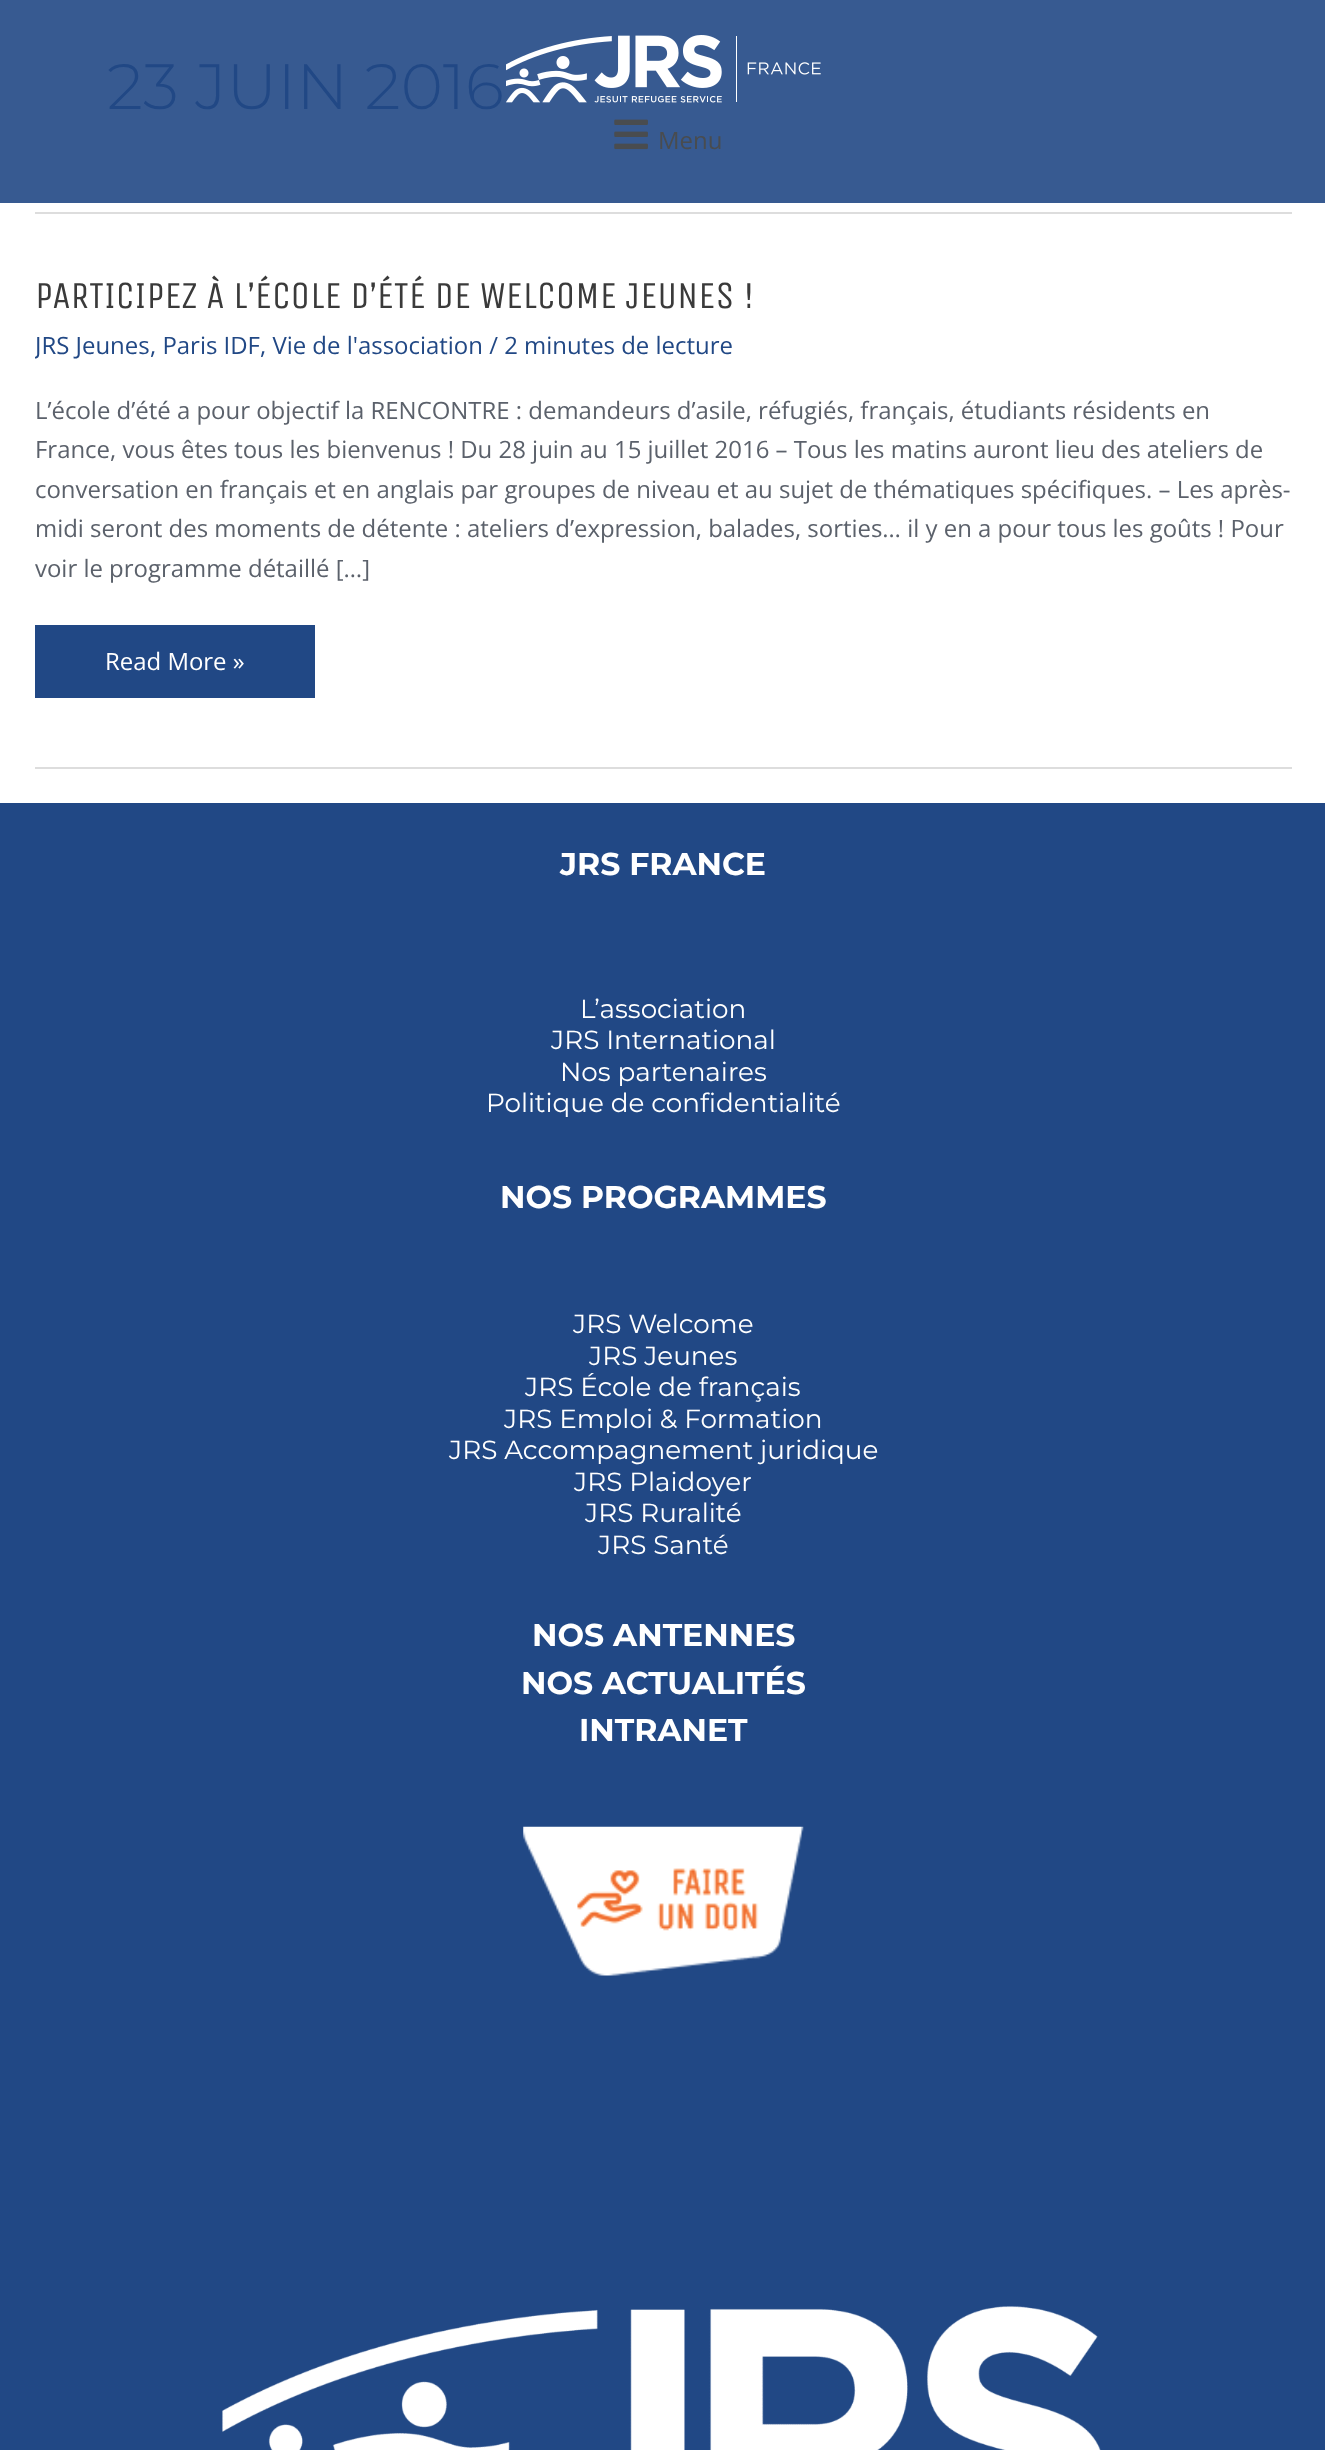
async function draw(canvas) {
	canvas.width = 1325;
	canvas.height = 2450;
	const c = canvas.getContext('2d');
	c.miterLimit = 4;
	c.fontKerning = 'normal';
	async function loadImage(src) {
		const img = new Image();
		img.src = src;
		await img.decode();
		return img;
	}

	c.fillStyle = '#fff';
	c.fillRect(0, 0, 1325, 2450);
	c.fillStyle = '#375a91';
	c.fillRect(0, 0, 1325, 203);
	c.fillStyle = '#ddd';
	c.fillRect(35, 212, 1257, 2);
	c.font = '300 64px Montserrat';
	c.fillStyle = '#214885';
	c.fillText('23 JUIN 2016', 107, 109);
	c.fillStyle = '#ddd';
	c.fillRect(35, 767, 1257, 2);
	c.font = '38.25px Unica One';
	c.fillStyle = '#3a3a3a';
	c.fillText('PARTICIPEZ À L’ÉCOLE D’ÉTÉ DE WELCOME JEUNES !', 35, 308);
	c.save();
	c.beginPath();
	c.rect(35, 273, 1257, 494);
	c.clip();
	c.font = '23.95px Open Sans';
	c.fillStyle = '#214885';
	c.fillText('JRS Jeunes', 35, 354);
	c.restore();
	c.font = '23.95px Open Sans';
	c.fillStyle = '#214885';
	c.fillText(', Paris IDF, Vie de l\'association / 2 minutes de lecture', 150, 354);
	c.fillStyle = '#5b616b';
	for (const [text, x, y] of [
		['L’école d’été a pour objectif la RENCONTRE : demandeurs d’asile, réfugiés, français, étudiants résidents en', 35, 419],
		['France, vous êtes tous les bienvenus ! Du 28 juin au 15 juillet 2016 – Tous les matins auront lieu des ateliers de', 35, 458],
		['conversation en français et en anglais par groupes de niveau et au sujet de thématiques spécifiques. – Les après-', 35, 498],
		['midi seront des moments de détente : ateliers d’expression, balades, sorties… il y en a pour tous les goûts ! Pour', 35, 537],
		['voir le programme détaillé […]', 35, 577],
	]) {
		c.fillText(text, x, y);
	}
	c.fillStyle = '#214885';
	c.fillRect(35, 625, 280, 73);
	c.fillStyle = '#fff';
	c.fillText('Read More »', 105, 670);
	c.drawImage(await loadImage('img1.png'), 506, 35, 315, 68);
	c.drawImage(await loadImage('img2.png'), 614, 119, 34, 31);
	c.fillStyle = '#494c4f';
	c.fillText('Menu', 658, 149);
	c.fillStyle = '#214885';
	c.fillRect(0, 803, 1325, 1647);
	c.font = 'bold 31.5px Montserrat';
	c.fillStyle = '#fff';
	c.fillText('JRS FRANCE', 560, 875);
	c.font = '26.25px Montserrat';
	for (const [text, x, y] of [
		['L’association', 580, 1018],
		['JRS International', 551, 1049],
		['Nos partenaires', 560, 1081],
		['Politique de confidentialité', 486, 1112],
	]) {
		c.fillText(text, x, y);
	}
	c.font = 'bold 31.5px Montserrat';
	c.fillText('NOS PROGRAMMES', 500, 1208);
	c.font = '26.25px Montserrat';
	for (const [text, x, y] of [
		['JRS Welcome', 573, 1333],
		['JRS Jeunes', 589, 1365],
		['JRS École de français', 525, 1396],
		['JRS Emploi & Formation', 504, 1428],
		['JRS Accompagnement juridique', 449, 1459],
		['JRS Plaidoyer', 574, 1491],
		['JRS Ruralité', 585, 1522],
		['JRS Santé', 598, 1554],
	]) {
		c.fillText(text, x, y);
	}
	c.font = 'bold 31.5px Montserrat';
	for (const [text, x, y] of [
		['NOS ANTENNES', 532, 1646],
		['NOS ACTUALITÉS', 521, 1694],
		['INTRANET', 579, 1741],
	]) {
		c.fillText(text, x, y);
	}
	c.drawImage(await loadImage('img3.png'), 523, 1826, 281, 150);
	c.drawImage(await loadImage('img4.png'), 222, 2306, 879, 144);
}

draw(document.querySelector('canvas'));
